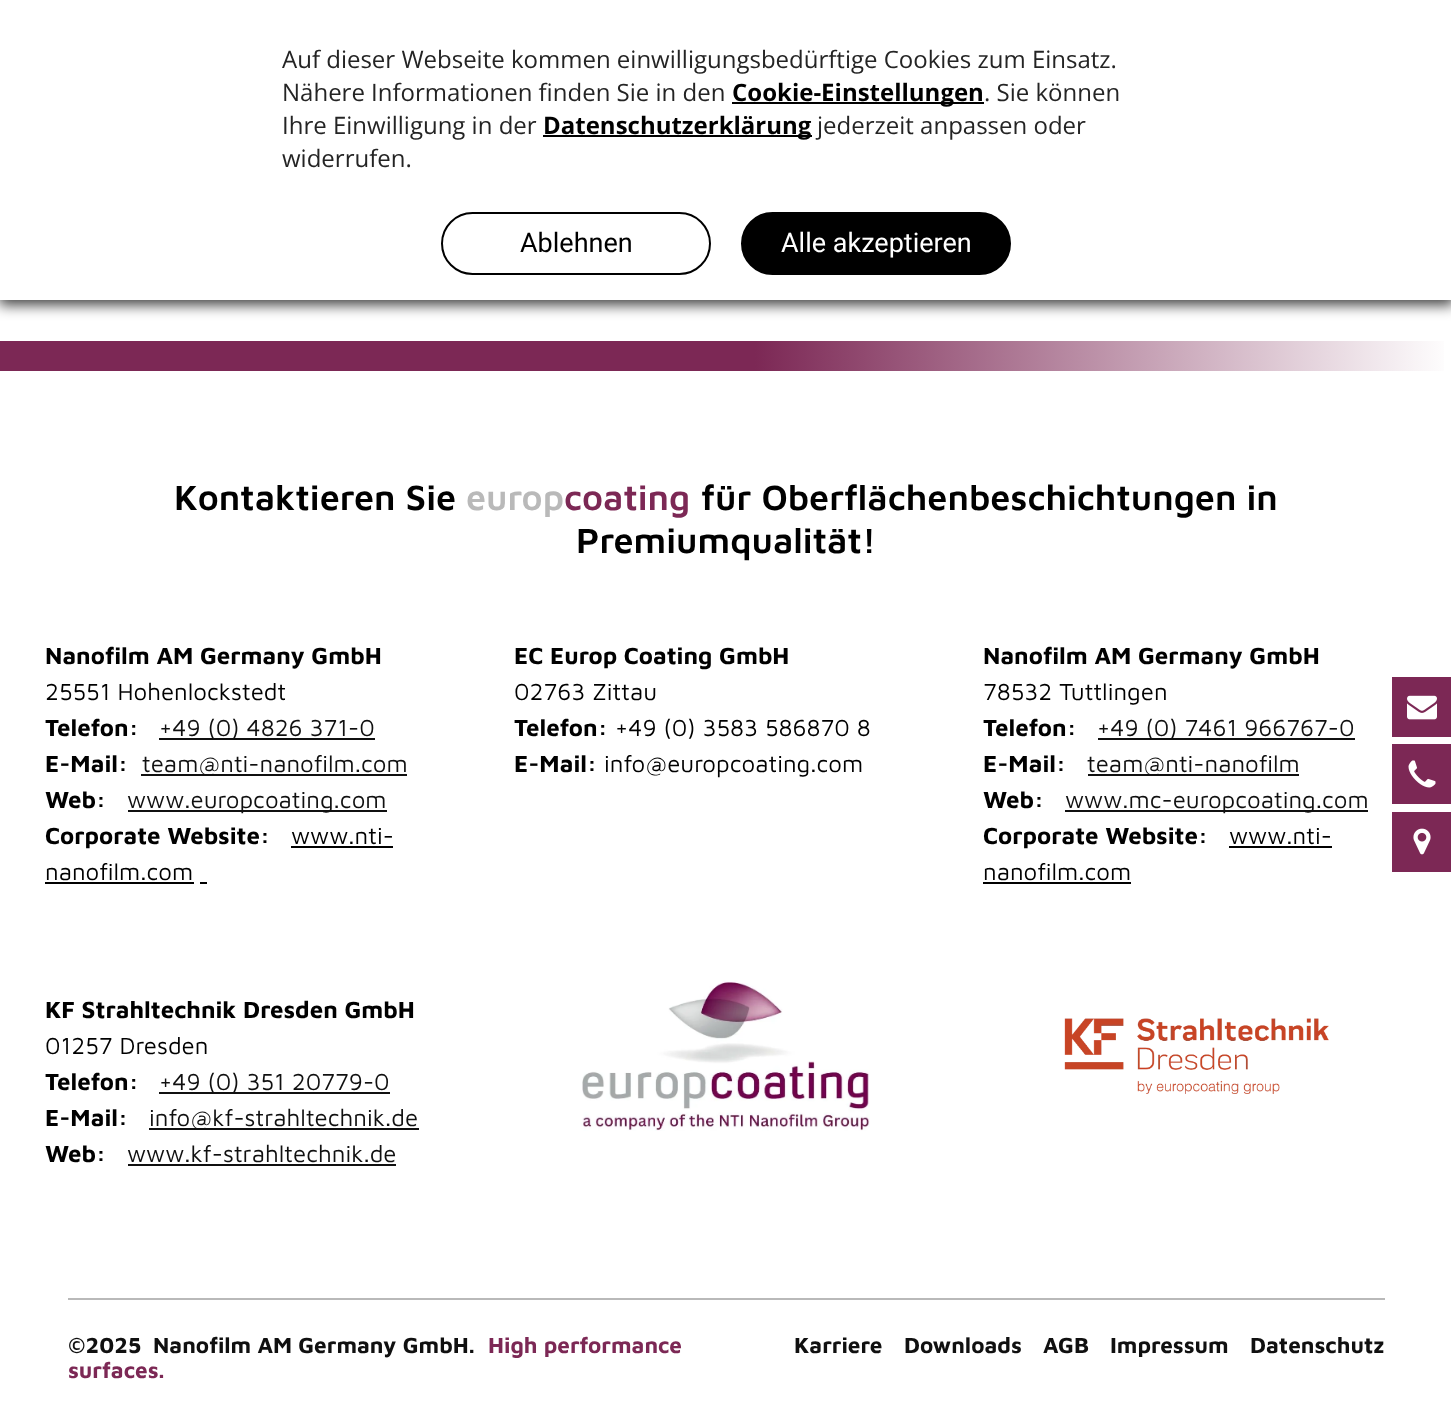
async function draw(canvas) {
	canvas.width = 1451;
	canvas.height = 1411;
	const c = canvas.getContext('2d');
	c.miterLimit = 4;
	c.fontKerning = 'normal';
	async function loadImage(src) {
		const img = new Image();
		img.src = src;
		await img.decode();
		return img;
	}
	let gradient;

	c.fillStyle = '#fff';
	c.fillRect(0, 0, 1451, 1411);
	c.fillStyle = '#000000bf';
	c.filter = 'blur(7px)';
	c.beginPath();
	c.rect(-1, 2, 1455, 303);
	c.fill();
	c.filter = 'none';
	c.fillStyle = '#fff';
	c.fillRect(0, 0, 1451, 300);
	c.font = '24px Open Sans';
	c.fillStyle = '#242424';
	c.fillText('Auf dieser Webseite kommen einwilligungsbedürftige Cookies zum Einsatz.', 282, 68);
	c.fillText('Nähere Informationen finden Sie in den', 282, 101);
	c.fillStyle = '#000';
	c.fillRect(732, 102, 252, 2);
	c.font = 'bold 24px Open Sans';
	c.fillText('Cookie-Einstellungen', 732, 101);
	c.font = '24px Open Sans';
	c.fillStyle = '#242424';
	c.fillText('. Sie können', 984, 101);
	c.fillText('Ihre Einwilligung in der', 282, 134);
	c.fillStyle = '#000';
	c.fillRect(543, 135, 269, 2);
	c.font = 'bold 24px Open Sans';
	c.fillText('Datenschutzerklärung', 543, 134);
	c.font = '24px Open Sans';
	c.fillStyle = '#242424';
	c.fillText('jederzeit anpassen oder', 817, 134);
	c.fillText('widerrufen.', 282, 167);
	c.beginPath();
	c.roundRect(442, 213, 268, 61, 30.5);
	c.strokeStyle = '#000';
	c.lineWidth = 2;
	c.stroke();
	c.font = '27px Roboto';
	c.fillStyle = '#000';
	c.fillText('Ablehnen', 520, 252);
	c.beginPath();
	c.roundRect(742, 213, 268, 61, 30.5);
	c.fill();
	c.stroke();
	c.fillStyle = '#fff';
	c.fillText('Alle akzeptieren', 781, 252);
	gradient = c.createLinearGradient(0, 356, 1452, 355);
	gradient.addColorStop(0.52, '#7c2855');
	gradient.addColorStop(1, '#fff');
	c.fillStyle = gradient;
	c.fillRect(0, 341, 1444, 30);
	c.font = '600 36px Maven Pro';
	c.fillStyle = '#000';
	c.fillText('Kontaktieren Sie', 174, 510);
	c.fillStyle = '#b9b9b9';
	c.fillText('europ', 466, 510);
	c.fillStyle = '#7c2855';
	c.fillText('coating', 564, 510);
	c.fillStyle = '#000';
	c.fillText('für Oberflächenbeschichtungen in', 701, 510);
	c.fillText('Premiumqualität!', 576, 553);
	c.font = 'bold 24px Maven Pro';
	c.fillText('Nanofilm AM Germany GmbH', 45, 664);
	c.font = '24px Maven Pro';
	c.fillText('25551 Hohenlockstedt', 45, 700);
	c.font = 'bold 24px Maven Pro';
	c.fillText('Telefon:', 45, 736);
	c.fillStyle = '#101010';
	c.fillRect(159, 738, 216, 2);
	c.font = '24px Maven Pro';
	c.fillText('+49 (0) 4826 371-0', 159, 736);
	c.font = 'bold 24px Maven Pro';
	c.fillStyle = '#000';
	c.fillText('E-Mail:', 45, 772);
	c.fillStyle = '#101010';
	c.fillRect(141, 774, 266, 2);
	c.font = '24px Maven Pro';
	c.fillText('team@nti-nanofilm.com', 142, 772);
	c.font = 'bold 24px Maven Pro';
	c.fillStyle = '#000';
	c.fillText('Web:', 45, 808);
	c.fillStyle = '#101010';
	c.fillRect(128, 810, 259, 2);
	c.font = '24px Maven Pro';
	c.fillText('www.europcoating.com', 127, 808);
	c.font = 'bold 24px Maven Pro';
	c.fillStyle = '#000';
	c.fillText('Corporate Website:', 45, 844);
	c.font = '24px Maven Pro';
	c.fillText('www.nti-', 291, 844);
	c.fillRect(291, 846, 102, 2);
	c.fillText('nanofilm.com', 45, 880);
	c.fillRect(45, 882, 149, 2);
	c.fillRect(200, 882, 7, 2);
	c.font = 'bold 24px Maven Pro';
	c.fillText('EC Europ Coating GmbH', 514, 664);
	c.font = '24px Maven Pro';
	c.fillText('02763 Zittau', 514, 700);
	c.font = 'bold 24px Maven Pro';
	c.fillText('Telefon:', 514, 736);
	c.font = '24px Maven Pro';
	c.fillText('+49 (0) 3583 586870 8', 615, 736);
	c.font = 'bold 24px Maven Pro';
	c.fillText('E-Mail:', 514, 772);
	c.font = '24px Maven Pro';
	c.fillText('info@europcoating.com', 604, 772);
	c.font = 'bold 24px Maven Pro';
	c.fillText('Nanofilm AM Germany GmbH', 983, 664);
	c.font = '24px Maven Pro';
	c.fillText('78532 Tuttlingen', 983, 700);
	c.font = 'bold 24px Maven Pro';
	c.fillText('Telefon:', 983, 736);
	c.fillStyle = '#101010';
	c.fillRect(1098, 738, 257, 2);
	c.font = '24px Maven Pro';
	c.fillText('+49 (0) 7461 966767-0', 1097, 736);
	c.font = 'bold 24px Maven Pro';
	c.fillStyle = '#000';
	c.fillText('E-Mail:', 983, 772);
	c.fillStyle = '#101010';
	c.fillRect(1088, 774, 211, 2);
	c.font = '24px Maven Pro';
	c.fillText('team@nti-nanofilm', 1087, 772);
	c.font = 'bold 24px Maven Pro';
	c.fillStyle = '#000';
	c.fillText('Web:', 983, 808);
	c.fillStyle = '#101010';
	c.fillRect(1065, 810, 303, 2);
	c.font = '24px Maven Pro';
	c.fillText('www.mc-europcoating.com', 1065, 808);
	c.font = 'bold 24px Maven Pro';
	c.fillStyle = '#000';
	c.fillText('Corporate Website:', 983, 844);
	c.font = '24px Maven Pro';
	c.fillText('www.nti-', 1229, 844);
	c.fillRect(1229, 846, 103, 2);
	c.fillText('nanofilm.com', 983, 880);
	c.fillRect(983, 882, 148, 2);
	c.font = 'bold 24px Maven Pro';
	c.fillText('KF Strahltechnik Dresden GmbH', 45, 1018);
	c.font = '24px Maven Pro';
	c.fillText('01257 Dresden', 45, 1054);
	c.font = 'bold 24px Maven Pro';
	c.fillText('Telefon:', 45, 1090);
	c.fillStyle = '#101010';
	c.fillRect(159, 1092, 231, 2);
	c.font = '24px Maven Pro';
	c.fillText('+49 (0) 351 20779-0', 159, 1090);
	c.font = 'bold 24px Maven Pro';
	c.fillStyle = '#000';
	c.fillText('E-Mail:', 45, 1126);
	c.fillStyle = '#101010';
	c.fillRect(149, 1128, 270, 2);
	c.font = '24px Maven Pro';
	c.fillText('info@kf-strahltechnik.de', 149, 1126);
	c.font = 'bold 24px Maven Pro';
	c.fillStyle = '#000';
	c.fillText('Web:', 45, 1162);
	c.font = '24px Maven Pro';
	c.fillStyle = '#101010';
	c.fillText('www.kf-strahltechnik.de', 127, 1162);
	c.fillRect(128, 1164, 268, 2);
	c.drawImage(await loadImage('img1.png'), 580, 980, 290, 151);
	c.drawImage(await loadImage('img2.png'), 1064, 1018, 265, 76);
	c.fillStyle = '#b9b9b9';
	c.fillRect(68, 1298, 1317, 2);
	c.font = 'bold 22.5px Maven Pro';
	c.fillStyle = '#101010';
	c.fillText('©2025', 68, 1353);
	c.fillText('Nanofilm AM Germany GmbH.', 153, 1353);
	c.fillStyle = '#7c2855';
	c.fillText('High performance', 488, 1353);
	c.fillText('surfaces.', 68, 1378);
	c.fillStyle = '#101010';
	for (const [text, x, y] of [
		['Karriere', 794, 1353],
		['Downloads', 904, 1353],
		['AGB', 1043, 1353],
		['Impressum', 1110, 1353],
		['Datenschutz', 1250, 1353],
	]) {
		c.fillText(text, x, y);
	}
	c.fillStyle = '#7c2855';
	c.fillRect(1392, 677, 59, 60);
	c.drawImage(await loadImage('img3.png'), 1407, 695, 30, 25);
	c.fillRect(1392, 744, 59, 60);
	c.drawImage(await loadImage('img4.png'), 1408, 760, 28, 28);
	c.fillRect(1392, 812, 59, 60);
	c.drawImage(await loadImage('img5.png'), 1413, 828, 18, 27);
}

draw(document.querySelector('canvas'));
